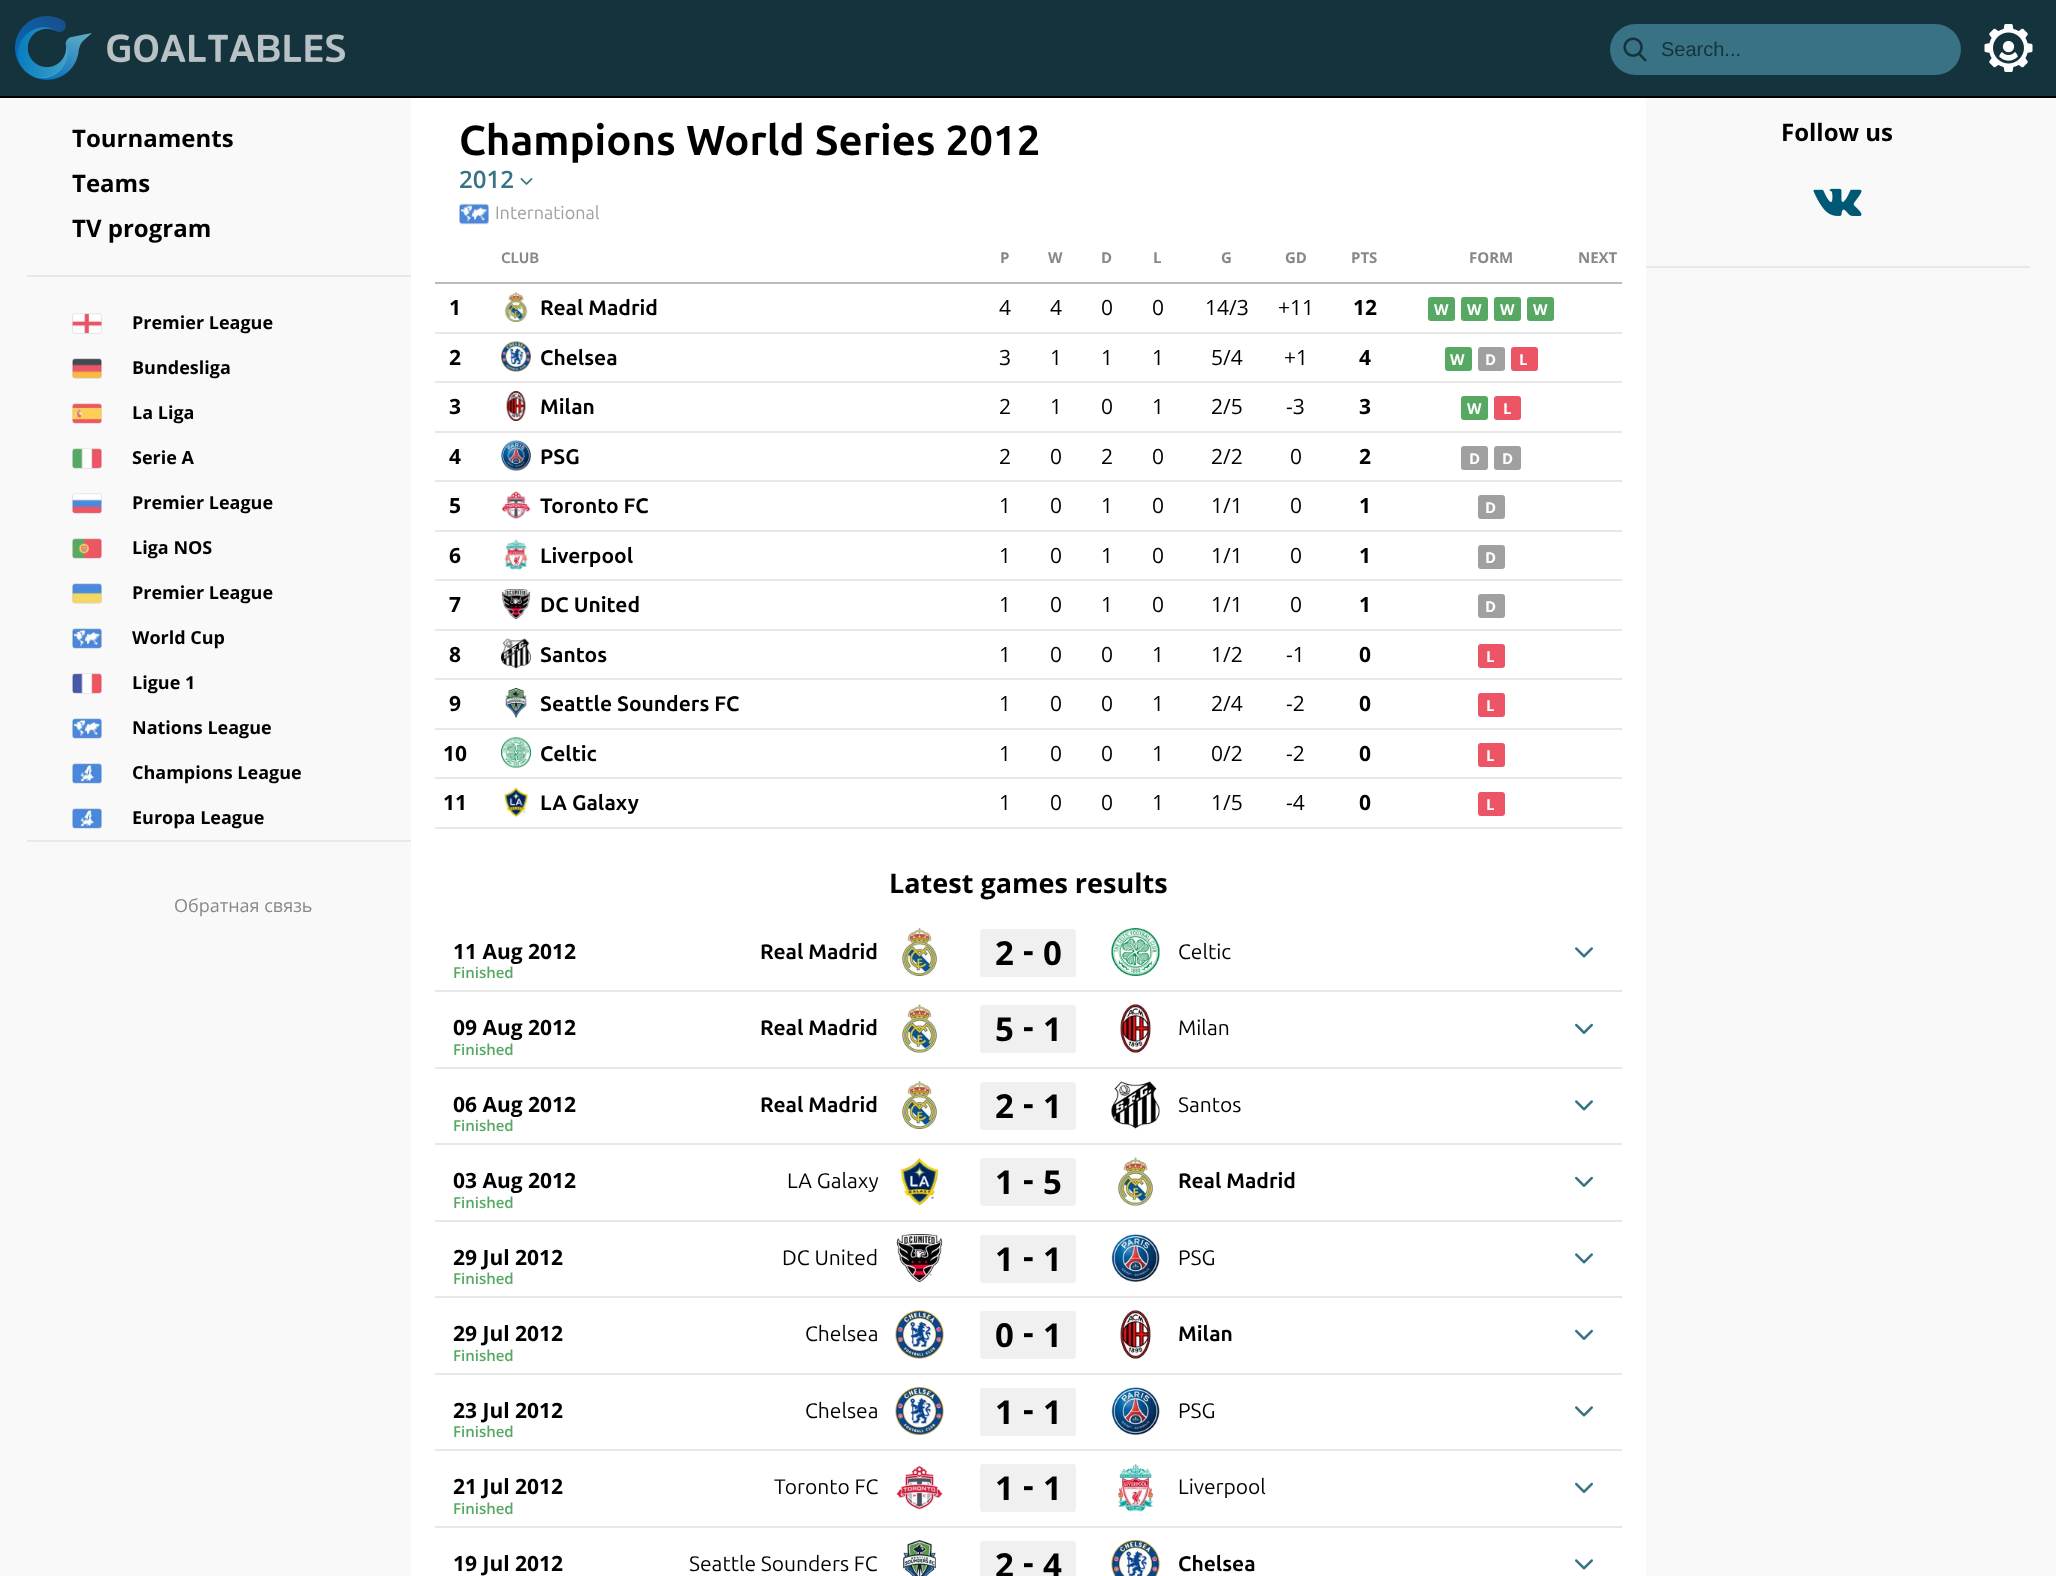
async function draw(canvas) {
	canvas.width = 2056;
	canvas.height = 1576;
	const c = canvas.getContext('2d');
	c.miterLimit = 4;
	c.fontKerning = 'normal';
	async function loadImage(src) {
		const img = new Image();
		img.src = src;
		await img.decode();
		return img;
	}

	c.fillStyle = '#fff';
	c.fillRect(0, 0, 2056, 1576);
	c.fillStyle = '#15333c';
	c.fillRect(0, 0, 2056, 96);
	c.fillStyle = '#000';
	c.fillRect(0, 96, 2056, 2);
	c.drawImage(await loadImage('img1.png'), 15, 16, 330, 64);
	c.fillStyle = '#387284';
	c.beginPath();
	c.roundRect(1610, 24, 351, 51, 25.5);
	c.fill();
	c.drawImage(await loadImage('img2.png'), 1623, 37, 24, 25);
	c.font = '20px Liberation Sans';
	c.fillStyle = '#15333c';
	c.fillText('Search...', 1661, 56);
	c.drawImage(await loadImage('img3.png'), 1984, 24, 49, 48);
	c.fillStyle = '#f9f9f9';
	c.fillRect(0, 98, 411, 1478);
	c.fillStyle = '#e8e8e8';
	c.fillRect(27, 275, 384, 2);
	c.font = 'bold 24px Open Sans';
	c.fillStyle = '#000';
	for (const [text, x, y] of [
		['Tournaments', 72, 147],
		['Teams', 72, 192],
		['TV program', 72, 237],
	]) {
		c.fillText(text, x, y);
	}
	c.drawImage(await loadImage('img4.png'), 72, 313, 30, 21);
	c.font = 'bold 18px Open Sans';
	c.fillText('Premier League', 132, 329);
	c.drawImage(await loadImage('img5.png'), 72, 358, 30, 21);
	c.fillText('Bundesliga', 132, 374);
	c.drawImage(await loadImage('img6.png'), 72, 403, 30, 21);
	c.fillText('La Liga', 132, 419);
	c.drawImage(await loadImage('img7.png'), 72, 448, 30, 21);
	c.fillText('Serie A', 132, 464);
	c.drawImage(await loadImage('img8.png'), 72, 493, 30, 21);
	c.fillText('Premier League', 132, 509);
	c.drawImage(await loadImage('img9.png'), 72, 538, 30, 21);
	c.fillText('Liga NOS', 132, 554);
	c.drawImage(await loadImage('img10.png'), 72, 583, 30, 21);
	c.fillText('Premier League', 132, 599);
	c.drawImage(await loadImage('img11.png'), 72, 628, 30, 21);
	c.fillText('World Cup', 132, 644);
	c.drawImage(await loadImage('img12.png'), 72, 673, 30, 21);
	c.fillText('Ligue 1', 132, 689);
	c.drawImage(await loadImage('img11.png'), 72, 718, 30, 21);
	c.fillText('Nations League', 132, 734);
	c.drawImage(await loadImage('img13.png'), 72, 763, 30, 21);
	c.fillText('Champions League', 132, 779);
	c.drawImage(await loadImage('img13.png'), 72, 808, 30, 21);
	c.fillText('Europa League', 132, 824);
	c.fillStyle = '#e8e8e8';
	c.fillRect(27, 840, 384, 2);
	c.font = '18px Open Sans';
	c.fillStyle = '#888';
	c.fillText('Обратная связь', 174, 912);
	c.font = 'bold 42px Ubuntu';
	c.fillStyle = '#000';
	c.fillText('Champions World Series 2012', 459, 155);
	c.font = '600 24px Open Sans';
	c.fillStyle = '#387284';
	c.fillText('2012', 459, 188);
	c.drawImage(await loadImage('img14.png'), 520, 178, 13, 7);
	c.drawImage(await loadImage('img15.png'), 459, 203, 30, 22);
	c.font = '18px Ubuntu';
	c.fillStyle = '#a0a0a0';
	c.fillText('International', 495, 219);
	c.font = 'bold 15px Ubuntu';
	c.fillStyle = '#888';
	c.fillText('CLUB', 501, 263);
	c.font = 'bold 15px Open Sans';
	for (const [text, x, y] of [
		['P', 1000, 263],
		['W', 1048, 263],
		['D', 1101, 263],
		['L', 1153, 263],
		['G', 1221, 263],
		['GD', 1285, 263],
		['PTS', 1351, 263],
		['FORM', 1469, 263],
		['NEXT', 1578, 263],
	]) {
		c.fillText(text, x, y);
	}
	c.fillStyle = '#bbb';
	c.fillRect(435, 282, 1187, 2);
	c.fillStyle = '#e8e8e8';
	c.fillRect(435, 332, 1187, 2);
	c.font = 'bold 21px Open Sans';
	c.fillStyle = '#000';
	c.fillText('1', 449, 315);
	c.drawImage(await loadImage('img16.png'), 504, 292, 24, 30);
	c.font = 'bold 21px Ubuntu';
	c.fillText('Real Madrid', 540, 315);
	c.font = '21px Open Sans';
	for (const [text, x, y] of [
		['4', 999, 315],
		['4', 1050, 315],
		['0', 1101, 315],
		['0', 1152, 315],
		['14/3', 1205, 315],
		['+11', 1278, 315],
	]) {
		c.fillText(text, x, y);
	}
	c.font = 'bold 21px Open Sans';
	c.fillText('12', 1353, 315);
	c.fillStyle = '#57a863';
	c.beginPath();
	c.roundRect(1428, 297, 27, 24, 3);
	c.fill();
	c.font = 'bold 15px Open Sans';
	c.fillStyle = '#fff';
	c.fillText('W', 1434, 315);
	c.fillStyle = '#57a863';
	c.beginPath();
	c.roundRect(1461, 297, 27, 24, 3);
	c.fill();
	c.fillStyle = '#fff';
	c.fillText('W', 1467, 315);
	c.fillStyle = '#57a863';
	c.beginPath();
	c.roundRect(1494, 297, 27, 24, 3);
	c.fill();
	c.fillStyle = '#fff';
	c.fillText('W', 1500, 315);
	c.fillStyle = '#57a863';
	c.beginPath();
	c.roundRect(1527, 297, 27, 24, 3);
	c.fill();
	c.fillStyle = '#fff';
	c.fillText('W', 1533, 315);
	c.fillStyle = '#e8e8e8';
	c.fillRect(435, 381, 1187, 2);
	c.font = 'bold 21px Open Sans';
	c.fillStyle = '#000';
	c.fillText('2', 449, 365);
	c.drawImage(await loadImage('img17.png'), 501, 341, 30, 31);
	c.font = 'bold 21px Ubuntu';
	c.fillText('Chelsea', 540, 365);
	c.font = '21px Open Sans';
	for (const [text, x, y] of [
		['3', 999, 365],
		['1', 1050, 365],
		['1', 1101, 365],
		['1', 1152, 365],
		['5/4', 1211, 365],
		['+1', 1284, 365],
	]) {
		c.fillText(text, x, y);
	}
	c.font = 'bold 21px Open Sans';
	c.fillText('4', 1359, 365);
	c.fillStyle = '#57a863';
	c.beginPath();
	c.roundRect(1445, 347, 27, 24, 3);
	c.fill();
	c.font = 'bold 15px Open Sans';
	c.fillStyle = '#fff';
	c.fillText('W', 1450, 365);
	c.fillStyle = '#a0a0a0';
	c.beginPath();
	c.roundRect(1478, 347, 27, 24, 3);
	c.fill();
	c.fillStyle = '#fff';
	c.fillText('D', 1485, 365);
	c.fillStyle = '#ec5565';
	c.beginPath();
	c.roundRect(1511, 347, 27, 24, 3);
	c.fill();
	c.fillStyle = '#fff';
	c.fillText('L', 1519, 365);
	c.fillStyle = '#e8e8e8';
	c.fillRect(435, 431, 1187, 2);
	c.font = 'bold 21px Open Sans';
	c.fillStyle = '#000';
	c.fillText('3', 449, 414);
	c.drawImage(await loadImage('img18.png'), 506, 391, 20, 30);
	c.font = 'bold 21px Ubuntu';
	c.fillText('Milan', 540, 414);
	c.font = '21px Open Sans';
	for (const [text, x, y] of [
		['2', 999, 414],
		['1', 1050, 414],
		['0', 1101, 414],
		['1', 1152, 414],
		['2/5', 1211, 414],
		['-3', 1286, 414],
	]) {
		c.fillText(text, x, y);
	}
	c.font = 'bold 21px Open Sans';
	c.fillText('3', 1359, 414);
	c.fillStyle = '#57a863';
	c.beginPath();
	c.roundRect(1461, 396, 27, 24, 3);
	c.fill();
	c.font = 'bold 15px Open Sans';
	c.fillStyle = '#fff';
	c.fillText('W', 1467, 414);
	c.fillStyle = '#ec5565';
	c.beginPath();
	c.roundRect(1494, 396, 27, 24, 3);
	c.fill();
	c.fillStyle = '#fff';
	c.fillText('L', 1503, 414);
	c.fillStyle = '#e8e8e8';
	c.fillRect(435, 480, 1187, 2);
	c.font = 'bold 21px Open Sans';
	c.fillStyle = '#000';
	c.fillText('4', 449, 464);
	c.drawImage(await loadImage('img19.png'), 501, 440, 30, 31);
	c.font = 'bold 21px Ubuntu';
	c.fillText('PSG', 540, 464);
	c.font = '21px Open Sans';
	for (const [text, x, y] of [
		['2', 999, 464],
		['0', 1050, 464],
		['2', 1101, 464],
		['0', 1152, 464],
		['2/2', 1211, 464],
		['0', 1290, 464],
	]) {
		c.fillText(text, x, y);
	}
	c.font = 'bold 21px Open Sans';
	c.fillText('2', 1359, 464);
	c.fillStyle = '#a0a0a0';
	c.beginPath();
	c.roundRect(1461, 446, 27, 24, 3);
	c.fill();
	c.font = 'bold 15px Open Sans';
	c.fillStyle = '#fff';
	c.fillText('D', 1469, 464);
	c.fillStyle = '#a0a0a0';
	c.beginPath();
	c.roundRect(1494, 446, 27, 24, 3);
	c.fill();
	c.fillStyle = '#fff';
	c.fillText('D', 1502, 464);
	c.fillStyle = '#e8e8e8';
	c.fillRect(435, 530, 1187, 2);
	c.font = 'bold 21px Open Sans';
	c.fillStyle = '#000';
	c.fillText('5', 449, 513);
	c.drawImage(await loadImage('img20.png'), 501, 491, 30, 28);
	c.font = 'bold 21px Ubuntu';
	c.fillText('Toronto FC', 540, 513);
	c.font = '21px Open Sans';
	for (const [text, x, y] of [
		['1', 999, 513],
		['0', 1050, 513],
		['1', 1101, 513],
		['0', 1152, 513],
		['1/1', 1211, 513],
		['0', 1290, 513],
	]) {
		c.fillText(text, x, y);
	}
	c.font = 'bold 21px Open Sans';
	c.fillText('1', 1359, 513);
	c.fillStyle = '#a0a0a0';
	c.beginPath();
	c.roundRect(1478, 495, 27, 24, 3);
	c.fill();
	c.font = 'bold 15px Open Sans';
	c.fillStyle = '#fff';
	c.fillText('D', 1485, 513);
	c.fillStyle = '#e8e8e8';
	c.fillRect(435, 579, 1187, 2);
	c.font = 'bold 21px Open Sans';
	c.fillStyle = '#000';
	c.fillText('6', 449, 563);
	c.drawImage(await loadImage('img21.png'), 504, 539, 24, 31);
	c.font = 'bold 21px Ubuntu';
	c.fillText('Liverpool', 540, 563);
	c.font = '21px Open Sans';
	for (const [text, x, y] of [
		['1', 999, 563],
		['0', 1050, 563],
		['1', 1101, 563],
		['0', 1152, 563],
		['1/1', 1211, 563],
		['0', 1290, 563],
	]) {
		c.fillText(text, x, y);
	}
	c.font = 'bold 21px Open Sans';
	c.fillText('1', 1359, 563);
	c.fillStyle = '#a0a0a0';
	c.beginPath();
	c.roundRect(1478, 545, 27, 24, 3);
	c.fill();
	c.font = 'bold 15px Open Sans';
	c.fillStyle = '#fff';
	c.fillText('D', 1485, 563);
	c.fillStyle = '#e8e8e8';
	c.fillRect(435, 629, 1187, 2);
	c.font = 'bold 21px Open Sans';
	c.fillStyle = '#000';
	c.fillText('7', 449, 612);
	c.drawImage(await loadImage('img22.png'), 501, 589, 30, 30);
	c.font = 'bold 21px Ubuntu';
	c.fillText('DC United', 540, 612);
	c.font = '21px Open Sans';
	for (const [text, x, y] of [
		['1', 999, 612],
		['0', 1050, 612],
		['1', 1101, 612],
		['0', 1152, 612],
		['1/1', 1211, 612],
		['0', 1290, 612],
	]) {
		c.fillText(text, x, y);
	}
	c.font = 'bold 21px Open Sans';
	c.fillText('1', 1359, 612);
	c.fillStyle = '#a0a0a0';
	c.beginPath();
	c.roundRect(1478, 594, 27, 24, 3);
	c.fill();
	c.font = 'bold 15px Open Sans';
	c.fillStyle = '#fff';
	c.fillText('D', 1485, 612);
	c.fillStyle = '#e8e8e8';
	c.fillRect(435, 678, 1187, 2);
	c.font = 'bold 21px Open Sans';
	c.fillStyle = '#000';
	c.fillText('8', 449, 662);
	c.drawImage(await loadImage('img23.png'), 501, 638, 30, 31);
	c.font = 'bold 21px Ubuntu';
	c.fillText('Santos', 540, 662);
	c.font = '21px Open Sans';
	for (const [text, x, y] of [
		['1', 999, 662],
		['0', 1050, 662],
		['0', 1101, 662],
		['1', 1152, 662],
		['1/2', 1211, 662],
		['-1', 1286, 662],
	]) {
		c.fillText(text, x, y);
	}
	c.font = 'bold 21px Open Sans';
	c.fillText('0', 1359, 662);
	c.fillStyle = '#ec5565';
	c.beginPath();
	c.roundRect(1478, 644, 27, 24, 3);
	c.fill();
	c.font = 'bold 15px Open Sans';
	c.fillStyle = '#fff';
	c.fillText('L', 1486, 662);
	c.fillStyle = '#e8e8e8';
	c.fillRect(435, 728, 1187, 2);
	c.font = 'bold 21px Open Sans';
	c.fillStyle = '#000';
	c.fillText('9', 449, 711);
	c.drawImage(await loadImage('img24.png'), 505, 688, 22, 30);
	c.font = 'bold 21px Ubuntu';
	c.fillText('Seattle Sounders FC', 540, 711);
	c.font = '21px Open Sans';
	for (const [text, x, y] of [
		['1', 999, 711],
		['0', 1050, 711],
		['0', 1101, 711],
		['1', 1152, 711],
		['2/4', 1211, 711],
		['-2', 1286, 711],
	]) {
		c.fillText(text, x, y);
	}
	c.font = 'bold 21px Open Sans';
	c.fillText('0', 1359, 711);
	c.fillStyle = '#ec5565';
	c.beginPath();
	c.roundRect(1478, 693, 27, 24, 3);
	c.fill();
	c.font = 'bold 15px Open Sans';
	c.fillStyle = '#fff';
	c.fillText('L', 1486, 711);
	c.fillStyle = '#e8e8e8';
	c.fillRect(435, 777, 1187, 2);
	c.font = 'bold 21px Open Sans';
	c.fillStyle = '#000';
	c.fillText('10', 443, 761);
	c.drawImage(await loadImage('img25.png'), 501, 737, 30, 31);
	c.font = 'bold 21px Ubuntu';
	c.fillText('Celtic', 540, 761);
	c.font = '21px Open Sans';
	for (const [text, x, y] of [
		['1', 999, 761],
		['0', 1050, 761],
		['0', 1101, 761],
		['1', 1152, 761],
		['0/2', 1211, 761],
		['-2', 1286, 761],
	]) {
		c.fillText(text, x, y);
	}
	c.font = 'bold 21px Open Sans';
	c.fillText('0', 1359, 761);
	c.fillStyle = '#ec5565';
	c.beginPath();
	c.roundRect(1478, 743, 27, 24, 3);
	c.fill();
	c.font = 'bold 15px Open Sans';
	c.fillStyle = '#fff';
	c.fillText('L', 1486, 761);
	c.fillStyle = '#e8e8e8';
	c.fillRect(435, 827, 1187, 2);
	c.font = 'bold 21px Open Sans';
	c.fillStyle = '#000';
	c.fillText('11', 443, 810);
	c.drawImage(await loadImage('img26.png'), 503, 787, 26, 30);
	c.font = 'bold 21px Ubuntu';
	c.fillText('LA Galaxy', 540, 810);
	c.font = '21px Open Sans';
	for (const [text, x, y] of [
		['1', 999, 810],
		['0', 1050, 810],
		['0', 1101, 810],
		['1', 1152, 810],
		['1/5', 1211, 810],
		['-4', 1286, 810],
	]) {
		c.fillText(text, x, y);
	}
	c.font = 'bold 21px Open Sans';
	c.fillText('0', 1359, 810);
	c.fillStyle = '#ec5565';
	c.beginPath();
	c.roundRect(1478, 792, 27, 24, 3);
	c.fill();
	c.font = 'bold 15px Open Sans';
	c.fillStyle = '#fff';
	c.fillText('L', 1486, 810);
	c.font = 'bold 27px Open Sans';
	c.fillStyle = '#000';
	c.fillText('Latest games results', 889, 893);
	c.fillStyle = '#e8e8e8';
	c.fillRect(435, 990, 527, 2);
	c.font = 'bold 21px Open Sans';
	c.fillStyle = '#000';
	c.fillText('11 Aug 2012', 453, 959);
	c.font = '600 15px Open Sans';
	c.fillStyle = '#57a863';
	c.fillText('Finished', 453, 978);
	c.font = 'bold 21px Ubuntu';
	c.fillStyle = '#000';
	c.fillText('Real Madrid', 760, 959);
	c.drawImage(await loadImage('img27.png'), 902, 928, 35, 48);
	c.fillStyle = '#e8e8e8';
	c.fillRect(962, 990, 132, 2);
	c.fillStyle = '#f0f0f0';
	c.beginPath();
	c.roundRect(980, 929, 96, 48, 3);
	c.fill();
	c.font = 'bold 33px Open Sans';
	c.fillStyle = '#000';
	for (const [text, x, y] of [
		['2', 995, 965],
		['-', 1023, 962],
		['0', 1043, 965],
	]) {
		c.fillText(text, x, y);
	}
	c.fillStyle = '#e8e8e8';
	c.fillRect(1094, 990, 528, 2);
	c.drawImage(await loadImage('img28.png'), 1111, 928, 49, 48);
	c.font = '21px Ubuntu';
	c.fillStyle = '#000';
	c.fillText('Celtic', 1178, 959);
	c.drawImage(await loadImage('img29.png'), 1575, 947, 18, 11);
	c.fillStyle = '#e8e8e8';
	c.fillRect(435, 1067, 527, 2);
	c.font = 'bold 21px Open Sans';
	c.fillStyle = '#000';
	c.fillText('09 Aug 2012', 453, 1035);
	c.font = '600 15px Open Sans';
	c.fillStyle = '#57a863';
	c.fillText('Finished', 453, 1055);
	c.font = 'bold 21px Ubuntu';
	c.fillStyle = '#000';
	c.fillText('Real Madrid', 760, 1035);
	c.drawImage(await loadImage('img30.png'), 902, 1004, 35, 49);
	c.fillStyle = '#e8e8e8';
	c.fillRect(962, 1067, 132, 2);
	c.fillStyle = '#f0f0f0';
	c.beginPath();
	c.roundRect(980, 1005, 96, 48, 3);
	c.fill();
	c.font = 'bold 33px Open Sans';
	c.fillStyle = '#000';
	for (const [text, x, y] of [
		['5', 995, 1041],
		['-', 1023, 1038],
		['1', 1043, 1041],
	]) {
		c.fillText(text, x, y);
	}
	c.fillStyle = '#e8e8e8';
	c.fillRect(1094, 1067, 528, 2);
	c.drawImage(await loadImage('img31.png'), 1120, 1004, 31, 49);
	c.font = '21px Ubuntu';
	c.fillStyle = '#000';
	c.fillText('Milan', 1178, 1035);
	c.drawImage(await loadImage('img32.png'), 1575, 1023, 18, 11);
	c.fillStyle = '#e8e8e8';
	c.fillRect(435, 1143, 527, 2);
	c.font = 'bold 21px Open Sans';
	c.fillStyle = '#000';
	c.fillText('06 Aug 2012', 453, 1112);
	c.font = '600 15px Open Sans';
	c.fillStyle = '#57a863';
	c.fillText('Finished', 453, 1131);
	c.font = 'bold 21px Ubuntu';
	c.fillStyle = '#000';
	c.fillText('Real Madrid', 760, 1112);
	c.drawImage(await loadImage('img27.png'), 902, 1081, 35, 48);
	c.fillStyle = '#e8e8e8';
	c.fillRect(962, 1143, 132, 2);
	c.fillStyle = '#f0f0f0';
	c.beginPath();
	c.roundRect(980, 1082, 96, 48, 3);
	c.fill();
	c.font = 'bold 33px Open Sans';
	c.fillStyle = '#000';
	for (const [text, x, y] of [
		['2', 995, 1118],
		['-', 1023, 1115],
		['1', 1043, 1118],
	]) {
		c.fillText(text, x, y);
	}
	c.fillStyle = '#e8e8e8';
	c.fillRect(1094, 1143, 528, 2);
	c.drawImage(await loadImage('img33.png'), 1111, 1081, 49, 48);
	c.font = '21px Ubuntu';
	c.fillStyle = '#000';
	c.fillText('Santos', 1178, 1112);
	c.drawImage(await loadImage('img29.png'), 1575, 1100, 18, 11);
	c.fillStyle = '#e8e8e8';
	c.fillRect(435, 1220, 527, 2);
	c.font = 'bold 21px Open Sans';
	c.fillStyle = '#000';
	c.fillText('03 Aug 2012', 453, 1188);
	c.font = '600 15px Open Sans';
	c.fillStyle = '#57a863';
	c.fillText('Finished', 453, 1208);
	c.font = '21px Ubuntu';
	c.fillStyle = '#000';
	c.fillText('LA Galaxy', 787, 1188);
	c.drawImage(await loadImage('img34.png'), 900, 1157, 39, 49);
	c.fillStyle = '#e8e8e8';
	c.fillRect(962, 1220, 132, 2);
	c.fillStyle = '#f0f0f0';
	c.beginPath();
	c.roundRect(980, 1158, 96, 48, 3);
	c.fill();
	c.font = 'bold 33px Open Sans';
	c.fillStyle = '#000';
	for (const [text, x, y] of [
		['1', 995, 1194],
		['-', 1023, 1191],
		['5', 1043, 1194],
	]) {
		c.fillText(text, x, y);
	}
	c.fillStyle = '#e8e8e8';
	c.fillRect(1094, 1220, 528, 2);
	c.drawImage(await loadImage('img30.png'), 1118, 1157, 35, 49);
	c.font = 'bold 21px Ubuntu';
	c.fillStyle = '#000';
	c.fillText('Real Madrid', 1178, 1188);
	c.drawImage(await loadImage('img32.png'), 1575, 1176, 18, 11);
	c.fillStyle = '#e8e8e8';
	c.fillRect(435, 1296, 527, 2);
	c.font = 'bold 21px Open Sans';
	c.fillStyle = '#000';
	c.fillText('29 Jul 2012', 453, 1265);
	c.font = '600 15px Open Sans';
	c.fillStyle = '#57a863';
	c.fillText('Finished', 453, 1284);
	c.font = '21px Ubuntu';
	c.fillStyle = '#000';
	c.fillText('DC United', 782, 1265);
	c.drawImage(await loadImage('img35.png'), 896, 1234, 47, 48);
	c.fillStyle = '#e8e8e8';
	c.fillRect(962, 1296, 132, 2);
	c.fillStyle = '#f0f0f0';
	c.beginPath();
	c.roundRect(980, 1235, 96, 48, 3);
	c.fill();
	c.font = 'bold 33px Open Sans';
	c.fillStyle = '#000';
	for (const [text, x, y] of [
		['1', 995, 1271],
		['-', 1023, 1268],
		['1', 1043, 1271],
	]) {
		c.fillText(text, x, y);
	}
	c.fillStyle = '#e8e8e8';
	c.fillRect(1094, 1296, 528, 2);
	c.drawImage(await loadImage('img36.png'), 1111, 1234, 49, 48);
	c.font = '21px Ubuntu';
	c.fillStyle = '#000';
	c.fillText('PSG', 1178, 1265);
	c.drawImage(await loadImage('img29.png'), 1575, 1253, 18, 11);
	c.fillStyle = '#e8e8e8';
	c.fillRect(435, 1373, 527, 2);
	c.font = 'bold 21px Open Sans';
	c.fillStyle = '#000';
	c.fillText('29 Jul 2012', 453, 1341);
	c.font = '600 15px Open Sans';
	c.fillStyle = '#57a863';
	c.fillText('Finished', 453, 1361);
	c.font = '21px Ubuntu';
	c.fillStyle = '#000';
	c.fillText('Chelsea', 805, 1341);
	c.drawImage(await loadImage('img37.png'), 895, 1310, 49, 49);
	c.fillStyle = '#e8e8e8';
	c.fillRect(962, 1373, 132, 2);
	c.fillStyle = '#f0f0f0';
	c.beginPath();
	c.roundRect(980, 1311, 96, 48, 3);
	c.fill();
	c.font = 'bold 33px Open Sans';
	c.fillStyle = '#000';
	for (const [text, x, y] of [
		['0', 995, 1347],
		['-', 1023, 1344],
		['1', 1043, 1347],
	]) {
		c.fillText(text, x, y);
	}
	c.fillStyle = '#e8e8e8';
	c.fillRect(1094, 1373, 528, 2);
	c.drawImage(await loadImage('img31.png'), 1120, 1310, 31, 49);
	c.font = 'bold 21px Ubuntu';
	c.fillStyle = '#000';
	c.fillText('Milan', 1178, 1341);
	c.drawImage(await loadImage('img32.png'), 1575, 1329, 18, 11);
	c.fillStyle = '#e8e8e8';
	c.fillRect(435, 1449, 527, 2);
	c.font = 'bold 21px Open Sans';
	c.fillStyle = '#000';
	c.fillText('23 Jul 2012', 453, 1418);
	c.font = '600 15px Open Sans';
	c.fillStyle = '#57a863';
	c.fillText('Finished', 453, 1437);
	c.font = '21px Ubuntu';
	c.fillStyle = '#000';
	c.fillText('Chelsea', 805, 1418);
	c.drawImage(await loadImage('img38.png'), 895, 1387, 49, 48);
	c.fillStyle = '#e8e8e8';
	c.fillRect(962, 1449, 132, 2);
	c.fillStyle = '#f0f0f0';
	c.beginPath();
	c.roundRect(980, 1388, 96, 48, 3);
	c.fill();
	c.font = 'bold 33px Open Sans';
	c.fillStyle = '#000';
	for (const [text, x, y] of [
		['1', 995, 1424],
		['-', 1023, 1421],
		['1', 1043, 1424],
	]) {
		c.fillText(text, x, y);
	}
	c.fillStyle = '#e8e8e8';
	c.fillRect(1094, 1449, 528, 2);
	c.drawImage(await loadImage('img36.png'), 1111, 1387, 49, 48);
	c.font = '21px Ubuntu';
	c.fillStyle = '#000';
	c.fillText('PSG', 1178, 1418);
	c.drawImage(await loadImage('img29.png'), 1575, 1406, 18, 11);
	c.fillStyle = '#e8e8e8';
	c.fillRect(435, 1526, 527, 2);
	c.font = 'bold 21px Open Sans';
	c.fillStyle = '#000';
	c.fillText('21 Jul 2012', 453, 1494);
	c.font = '600 15px Open Sans';
	c.fillStyle = '#57a863';
	c.fillText('Finished', 453, 1514);
	c.font = '21px Ubuntu';
	c.fillStyle = '#000';
	c.fillText('Toronto FC', 774, 1494);
	c.drawImage(await loadImage('img39.png'), 896, 1465, 47, 45);
	c.fillStyle = '#e8e8e8';
	c.fillRect(962, 1526, 132, 2);
	c.fillStyle = '#f0f0f0';
	c.beginPath();
	c.roundRect(980, 1464, 96, 48, 3);
	c.fill();
	c.font = 'bold 33px Open Sans';
	c.fillStyle = '#000';
	for (const [text, x, y] of [
		['1', 995, 1500],
		['-', 1023, 1497],
		['1', 1043, 1500],
	]) {
		c.fillText(text, x, y);
	}
	c.fillStyle = '#e8e8e8';
	c.fillRect(1094, 1526, 528, 2);
	c.drawImage(await loadImage('img40.png'), 1118, 1463, 36, 49);
	c.font = '21px Ubuntu';
	c.fillStyle = '#000';
	c.fillText('Liverpool', 1178, 1494);
	c.drawImage(await loadImage('img32.png'), 1575, 1482, 18, 11);
	c.font = 'bold 21px Open Sans';
	c.fillText('19 Jul 2012', 453, 1571);
	c.font = '21px Ubuntu';
	c.fillText('Seattle Sounders FC', 689, 1571);
	c.drawImage(await loadImage('img41.png'), 903, 1540, 33, 36);
	c.fillStyle = '#f0f0f0';
	c.beginPath();
	c.roundRect(980, 1541, 96, 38, 3);
	c.fill();
	c.font = 'bold 33px Open Sans';
	c.fillStyle = '#000';
	for (const [text, x, y] of [
		['2', 995, 1577],
		['-', 1023, 1574],
		['4', 1043, 1577],
	]) {
		c.fillText(text, x, y);
	}
	c.drawImage(await loadImage('img42.png'), 1111, 1540, 49, 36);
	c.font = 'bold 21px Ubuntu';
	c.fillText('Chelsea', 1178, 1571);
	c.drawImage(await loadImage('img29.png'), 1575, 1559, 18, 11);
	c.fillStyle = '#f9f9f9';
	c.fillRect(1646, 98, 410, 1478);
	c.fillStyle = '#e8e8e8';
	c.fillRect(1646, 266, 384, 2);
	c.font = 'bold 24px Open Sans';
	c.fillStyle = '#000';
	c.fillText('Follow us', 1781, 141);
	c.drawImage(await loadImage('img43.png'), 1813, 188, 49, 28);
}

draw(document.querySelector('canvas'));
